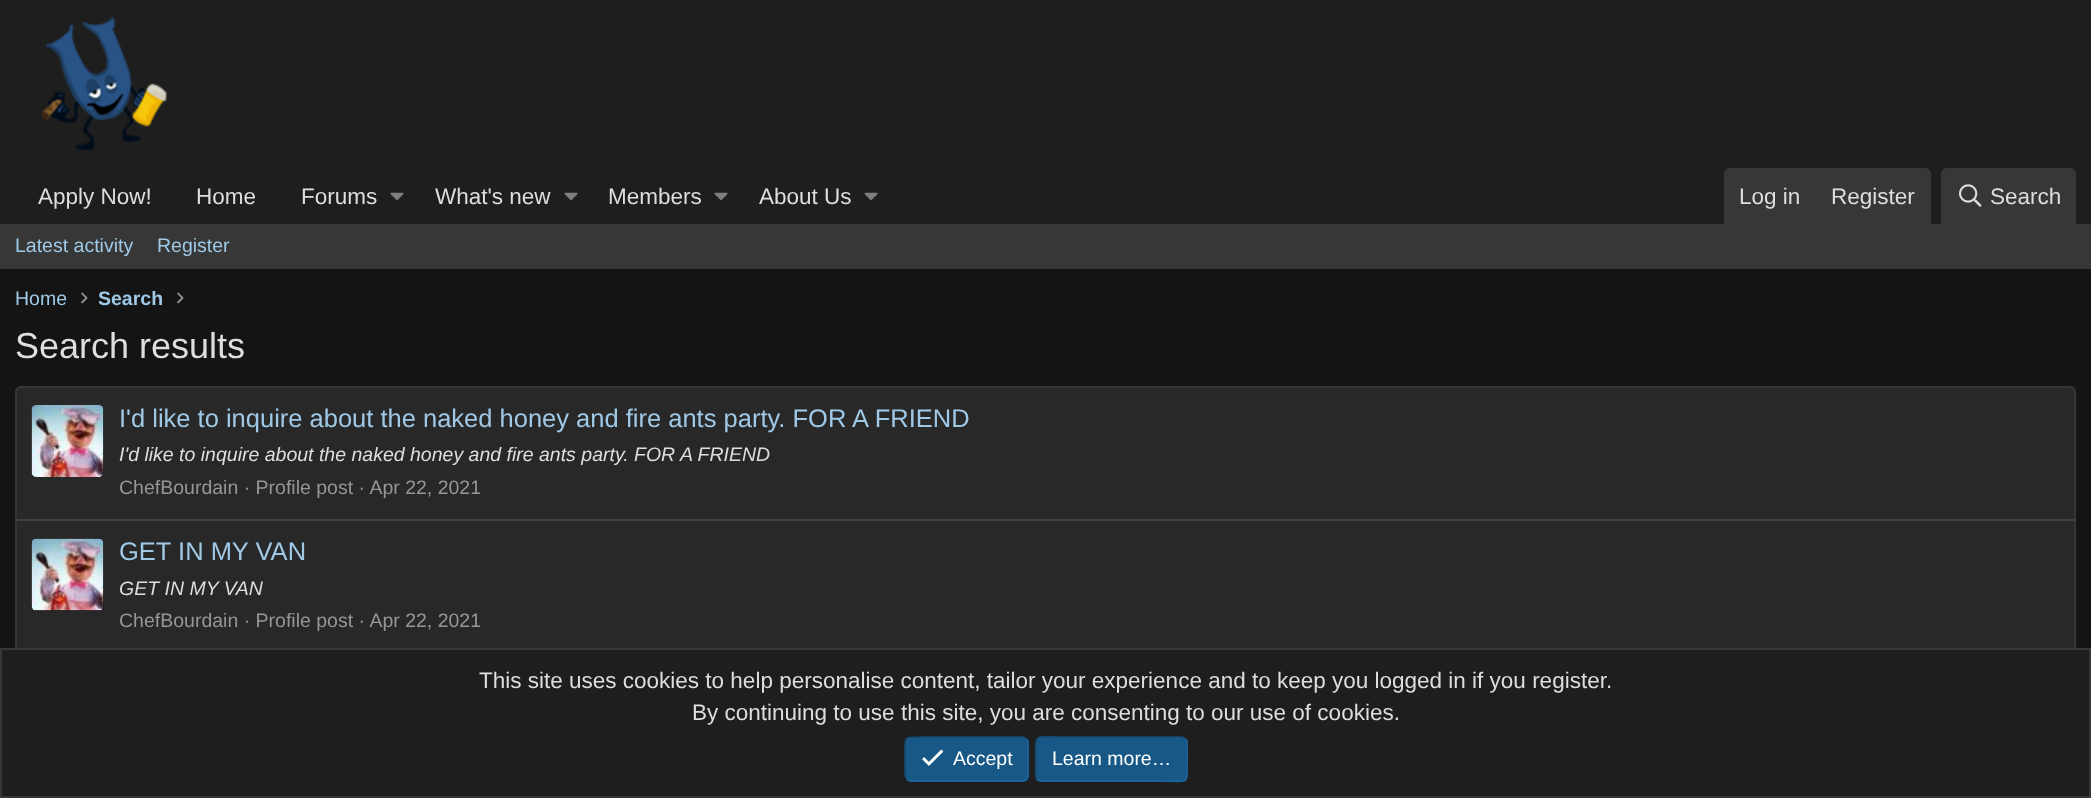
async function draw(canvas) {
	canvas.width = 2091;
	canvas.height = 798;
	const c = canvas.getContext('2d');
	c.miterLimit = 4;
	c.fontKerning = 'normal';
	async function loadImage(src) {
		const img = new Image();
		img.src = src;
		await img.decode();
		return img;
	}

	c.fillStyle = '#141414';
	c.fillRect(0, 0, 2091, 798);
	c.fillStyle = '#1e1e1e';
	c.fillRect(0, 0, 2091, 224);
	c.drawImage(await loadImage('img1.png'), 41, 16, 126, 135);
	c.font = '22.5px Liberation Sans';
	c.fillStyle = '#dedede';
	for (const [text, x, y] of [
		['Apply Now!', 38, 204],
		['Home', 196, 204],
		['Forums', 301, 204],
	]) {
		c.fillText(text, x, y);
	}
	c.drawImage(await loadImage('img2.png'), 390, 192, 14, 9);
	c.fillText('What\'s new', 435, 204);
	c.drawImage(await loadImage('img2.png'), 564, 192, 14, 9);
	c.fillText('Members', 608, 204);
	c.drawImage(await loadImage('img2.png'), 714, 192, 14, 9);
	c.fillText('About Us', 759, 204);
	c.drawImage(await loadImage('img2.png'), 864, 192, 14, 9);
	c.fillStyle = '#373737';
	c.beginPath();
	c.roundRect(1724, 168, 207, 56, [6, 6, 0, 0]);
	c.fill();
	c.fillStyle = '#dedede';
	c.fillText('Log in', 1739, 204);
	c.fillText('Register', 1831, 204);
	c.fillStyle = '#373737';
	c.beginPath();
	c.roundRect(1941, 168, 135, 56, [6, 6, 0, 0]);
	c.fill();
	c.drawImage(await loadImage('img3.png'), 1959, 184, 23, 23);
	c.fillStyle = '#dedede';
	c.fillText('Search', 1990, 204);
	c.fillStyle = '#373737';
	c.fillRect(0, 224, 2091, 45);
	c.font = '19.5px Liberation Sans';
	c.fillStyle = '#9fc9e7';
	for (const [text, x, y] of [
		['Latest activity', 15, 252],
		['Register', 157, 252],
		['Home', 15, 305],
	]) {
		c.fillText(text, x, y);
	}
	c.drawImage(await loadImage('img4.png'), 81, 292, 7, 12);
	c.font = 'bold 19.5px Liberation Sans';
	c.fillText('Search', 98, 305);
	c.drawImage(await loadImage('img4.png'), 177, 292, 7, 12);
	c.font = '36px Liberation Sans';
	c.fillStyle = '#dedede';
	c.fillText('Search results', 15, 358);
	c.fillStyle = '#282828';
	c.beginPath();
	c.roundRect(16, 387, 2059, 266, 5);
	c.fill();
	c.strokeStyle = '#373737';
	c.lineWidth = 2;
	c.stroke();
	c.fillStyle = '#1e1e1e';
	c.beginPath();
	c.roundRect(32, 405, 72, 72, 5);
	c.fill();
	c.drawImage(await loadImage('img5.png'), 31, 405, 73, 72);
	c.font = '25.5px Liberation Sans';
	c.fillStyle = '#9fc9e7';
	c.fillText('I\'d like to inquire about the naked honey and fire ants party. FOR A FRIEND', 119, 427);
	c.font = 'italic 19.5px Liberation Sans';
	c.fillStyle = '#dedede';
	c.fillText('I\'d like to inquire about the naked honey and fire ants party. FOR A FRIEND', 119, 461);
	c.font = '19.5px Liberation Sans';
	c.fillStyle = '#969696';
	c.fillText('ChefBourdain · Profile post · Apr 22, 2021', 119, 494);
	c.fillStyle = '#414141';
	c.fillRect(17, 519, 2058, 2);
	c.fillStyle = '#1e1e1e';
	c.beginPath();
	c.roundRect(32, 539, 72, 72, 5);
	c.fill();
	c.drawImage(await loadImage('img6.png'), 31, 538, 73, 73);
	c.font = '25.5px Liberation Sans';
	c.fillStyle = '#9fc9e7';
	c.fillText('GET IN MY VAN', 119, 560);
	c.font = 'italic 19.5px Liberation Sans';
	c.fillStyle = '#dedede';
	c.fillText('GET IN MY VAN', 119, 595);
	c.font = '19.5px Liberation Sans';
	c.fillStyle = '#969696';
	c.fillText('ChefBourdain · Profile post · Apr 22, 2021', 119, 627);
	c.fillStyle = '#1e1e1e';
	c.beginPath();
	c.rect(1, 649, 2089, 148);
	c.fill();
	c.stroke();
	c.font = '22.5px Liberation Sans';
	c.fillStyle = '#dedede';
	c.fillText('This site uses cookies to help personalise content, tailor your experience and to keep you logged in if you register.', 479, 688);
	c.fillText('By continuing to use this site, you are consenting to our use of cookies.', 692, 720);
	c.fillStyle = '#185886';
	c.beginPath();
	c.roundRect(905, 737, 124, 45, 6);
	c.fill();
	c.beginPath();
	c.moveTo(1026.5, 739);
	c.bezierCurveTo(1029, 741, 1028, 745, 1028, 748);
	c.lineTo(1028, 759);
	c.bezierCurveTo(1028, 784.5, 1031.5, 781, 1004, 781);
	c.lineTo(910.5, 781);
	c.bezierCurveTo(909, 780.5, 908, 780, 907, 779);
	c.strokeStyle = '#1c669c';
	c.lineWidth = 1.5;
	c.stroke();
	c.beginPath();
	c.moveTo(907, 779);
	c.bezierCurveTo(904.5, 777, 905, 773, 905, 770);
	c.lineTo(905, 759);
	c.bezierCurveTo(905, 733.5, 902, 737, 929, 737);
	c.lineTo(1023, 737);
	c.bezierCurveTo(1024.5, 737.5, 1025.5, 738, 1026.5, 739);
	c.strokeStyle = '#144a70';
	c.stroke();
	c.drawImage(await loadImage('img7.png'), 922, 749, 22, 17);
	c.font = '19.5px Liberation Sans';
	c.fillStyle = '#fff';
	c.fillText('Accept', 953, 765);
	c.fillStyle = '#185886';
	c.beginPath();
	c.roundRect(1035, 737, 153, 45, 6);
	c.fill();
	c.beginPath();
	c.moveTo(1185.5, 739);
	c.bezierCurveTo(1188, 741, 1187, 745, 1187, 748);
	c.lineTo(1187, 759);
	c.bezierCurveTo(1187, 786.5, 1190, 781, 1158.5, 781);
	c.lineTo(1041, 781);
	c.bezierCurveTo(1039.5, 780.5, 1038.5, 780, 1037.5, 779);
	c.strokeStyle = '#1c669c';
	c.stroke();
	c.beginPath();
	c.moveTo(1037.5, 779);
	c.bezierCurveTo(1035, 777, 1036, 773, 1036, 770);
	c.lineTo(1036, 759);
	c.bezierCurveTo(1036, 731.5, 1033, 737, 1064.5, 737);
	c.lineTo(1182, 737);
	c.bezierCurveTo(1183.5, 737.5, 1184.5, 738, 1185.5, 739);
	c.strokeStyle = '#144a70';
	c.stroke();
	c.fillStyle = '#fff';
	c.fillText('Learn more…', 1052, 765);
}

draw(document.querySelector('canvas'));
